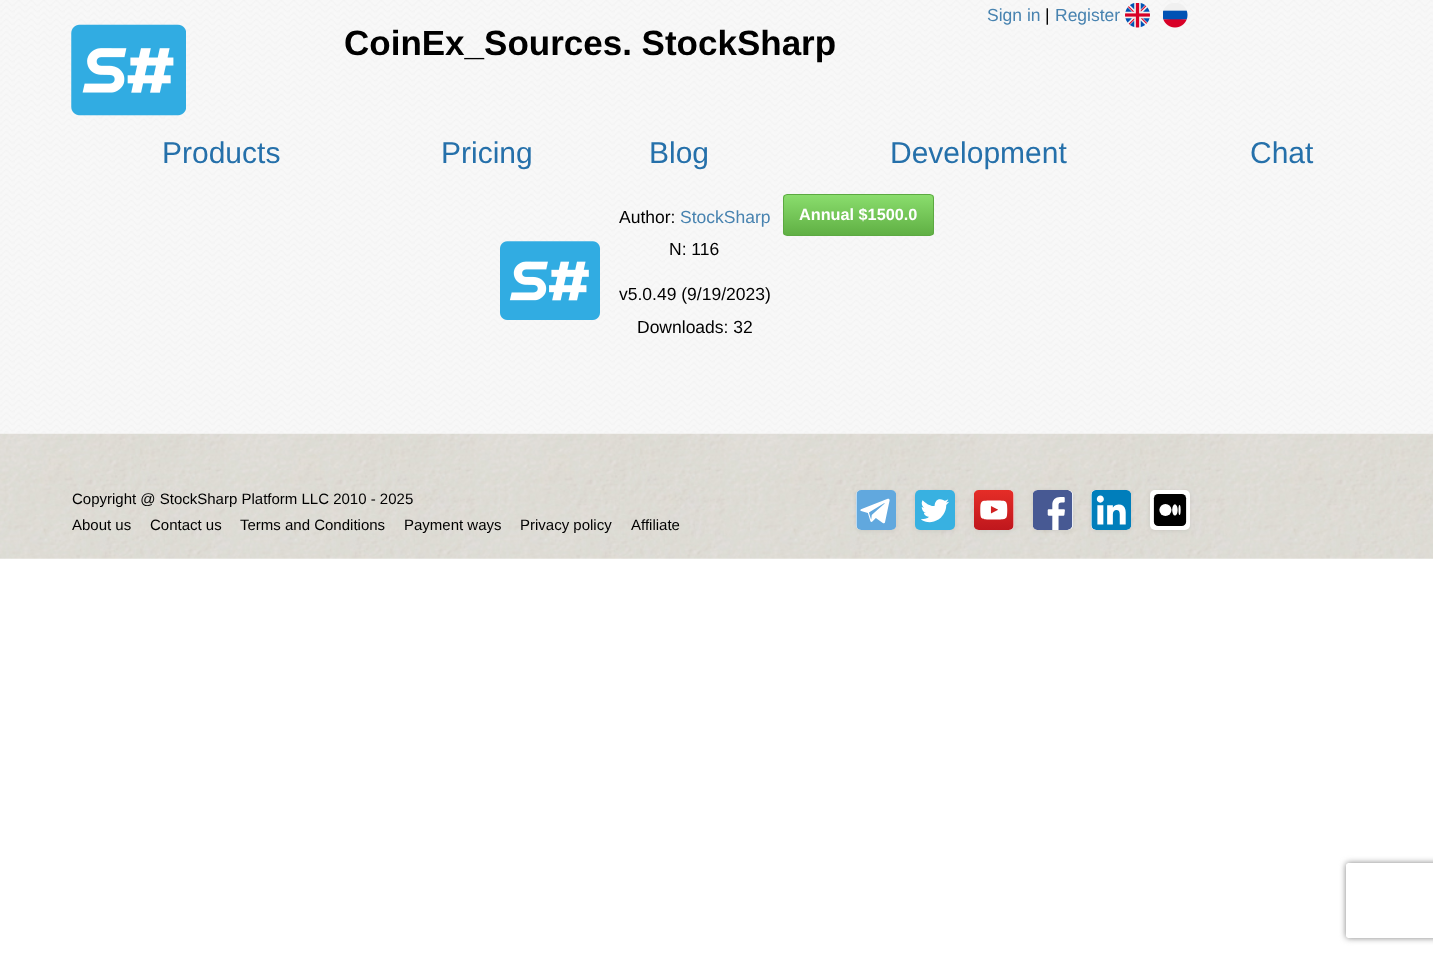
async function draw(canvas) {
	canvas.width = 1433;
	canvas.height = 955;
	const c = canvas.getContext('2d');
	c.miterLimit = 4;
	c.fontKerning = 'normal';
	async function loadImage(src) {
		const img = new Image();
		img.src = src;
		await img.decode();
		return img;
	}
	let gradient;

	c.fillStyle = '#fff';
	c.fillRect(0, 0, 1433, 955);
	c.drawImage(await loadImage('img1.png'), 0, 0, 1433, 434);
	c.font = '17.5px Liberation Sans';
	c.fillStyle = '#4883b0';
	c.fillText('Sign in', 987, 21);
	c.fillStyle = '#000';
	c.fillText('|', 1045, 21);
	c.fillStyle = '#4883b0';
	c.fillText('Register', 1055, 21);
	c.drawImage(await loadImage('img2.png'), 1125, 3, 25, 25);
	c.drawImage(await loadImage('img3.png'), 1163, 3, 25, 25);
	c.drawImage(await loadImage('img4.png'), 71, 24, 115, 92);
	c.font = 'bold 35px Liberation Sans';
	c.fillStyle = '#000';
	c.fillText('CoinEx_Sources. StockSharp', 344, 55);
	c.font = '30px Liberation Sans';
	c.fillStyle = '#2570aa';
	for (const [text, x, y] of [
		['Products', 162, 163],
		['Pricing', 441, 163],
		['Blog', 649, 163],
		['Development', 890, 163],
		['Chat', 1250, 163],
	]) {
		c.fillText(text, x, y);
	}
	c.drawImage(await loadImage('img5.png'), 500, 241, 100, 79);
	c.font = '17.5px Liberation Sans';
	c.fillStyle = '#000';
	c.fillText('Author:', 619, 223);
	c.fillStyle = '#4883b0';
	c.fillText('StockSharp', 680, 223);
	c.fillStyle = '#000';
	for (const [text, x, y] of [
		['N: 116', 669, 255],
		['v5.0.49 (9/19/2023)', 619, 300],
		['Downloads: 32', 637, 333],
	]) {
		c.fillText(text, x, y);
	}
	c.save();
	c.beginPath();
	c.roundRect(783, 194, 151, 42, 4);
	c.clip();
	gradient = c.createLinearGradient(858, 195, 858, 235);
	gradient.addColorStop(0, '#8add6d');
	gradient.addColorStop(1, '#60b044');
	c.fillStyle = gradient;
	c.fillRect(783, 195, 151, 40);
	c.restore();
	c.beginPath();
	c.roundRect(783.5, 194.5, 150, 41, 3.5);
	c.strokeStyle = '#5ca941';
	c.stroke();
	c.font = 'bold 16.25px Liberation Sans';
	c.fillStyle = '#fff';
	c.fillText('Annual $1500.0', 799, 220);
	c.drawImage(await loadImage('img6.png'), 0, 433, 1433, 126);
	c.font = '15px Liberation Sans';
	c.fillStyle = '#000';
	for (const [text, x, y] of [
		['Copyright @ StockSharp Platform LLC 2010 - 2025', 72, 504],
		['About us', 72, 530],
		['Contact us', 150, 530],
		['Terms and Conditions', 240, 530],
		['Payment ways', 404, 530],
		['Privacy policy', 520, 530],
		['Affiliate', 631, 530],
	]) {
		c.fillText(text, x, y);
	}
	c.fillStyle = '#00000014';
	c.filter = 'blur(2px)';
	c.beginPath();
	c.roundRect(856, 491, 40, 40, 5);
	c.fill();
	c.filter = 'none';
	c.fillStyle = '#fff';
	c.beginPath();
	c.roundRect(856, 490, 40, 40, 5);
	c.fill();
	c.drawImage(await loadImage('img7.png'), 856, 490, 40, 40);
	c.fillStyle = '#00000014';
	c.filter = 'blur(2px)';
	c.beginPath();
	c.roundRect(915, 491, 40, 40, 5);
	c.fill();
	c.filter = 'none';
	c.drawImage(await loadImage('img8.png'), 915, 490, 40, 40);
	c.filter = 'blur(2px)';
	c.beginPath();
	c.roundRect(974, 491, 40, 40, 5);
	c.fill();
	c.filter = 'none';
	c.fillStyle = '#fff';
	c.beginPath();
	c.roundRect(974, 490, 40, 40, 5);
	c.fill();
	c.drawImage(await loadImage('img9.png'), 974, 490, 40, 40);
	c.fillStyle = '#00000014';
	c.filter = 'blur(2px)';
	c.beginPath();
	c.roundRect(1033, 491, 40, 40, 5);
	c.fill();
	c.filter = 'none';
	c.fillStyle = '#fff';
	c.beginPath();
	c.roundRect(1033, 490, 40, 40, 5);
	c.fill();
	c.drawImage(await loadImage('img10.png'), 1033, 490, 40, 40);
	c.fillStyle = '#00000014';
	c.filter = 'blur(2px)';
	c.beginPath();
	c.roundRect(1091, 491, 40, 40, 5);
	c.fill();
	c.filter = 'none';
	c.fillStyle = '#fff';
	c.beginPath();
	c.roundRect(1091, 490, 40, 40, 5);
	c.fill();
	c.drawImage(await loadImage('img11.png'), 1091, 490, 40, 40);
	c.fillStyle = '#00000014';
	c.filter = 'blur(2px)';
	c.beginPath();
	c.roundRect(1150, 491, 40, 40, 5);
	c.fill();
	c.filter = 'none';
	c.fillStyle = '#fff';
	c.beginPath();
	c.roundRect(1150, 490, 40, 40, 5);
	c.fill();
	c.drawImage(await loadImage('img12.png'), 1153, 494, 34, 32);
	c.save();
	c.beginPath();
	c.moveTo(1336, 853);
	c.lineTo(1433, 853);
	c.lineTo(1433, 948);
	c.lineTo(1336, 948);
	c.closePath();
	c.moveTo(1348.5, 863);
	c.lineTo(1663.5, 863);
	c.bezierCurveTo(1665, 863, 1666, 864, 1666, 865.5);
	c.lineTo(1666, 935.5);
	c.bezierCurveTo(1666, 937, 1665, 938, 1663.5, 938);
	c.lineTo(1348.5, 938);
	c.bezierCurveTo(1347, 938, 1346, 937, 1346, 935.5);
	c.lineTo(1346, 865.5);
	c.bezierCurveTo(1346, 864, 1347, 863, 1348.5, 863);
	c.closePath();
	c.clip('evenodd');
	c.fillStyle = '#808080';
	c.filter = 'blur(3px)';
	c.beginPath();
	c.roundRect(1346, 863, 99, 75, 2.5);
	c.fill();
	c.filter = 'none';
	c.restore();
}

draw(document.querySelector('canvas'));
